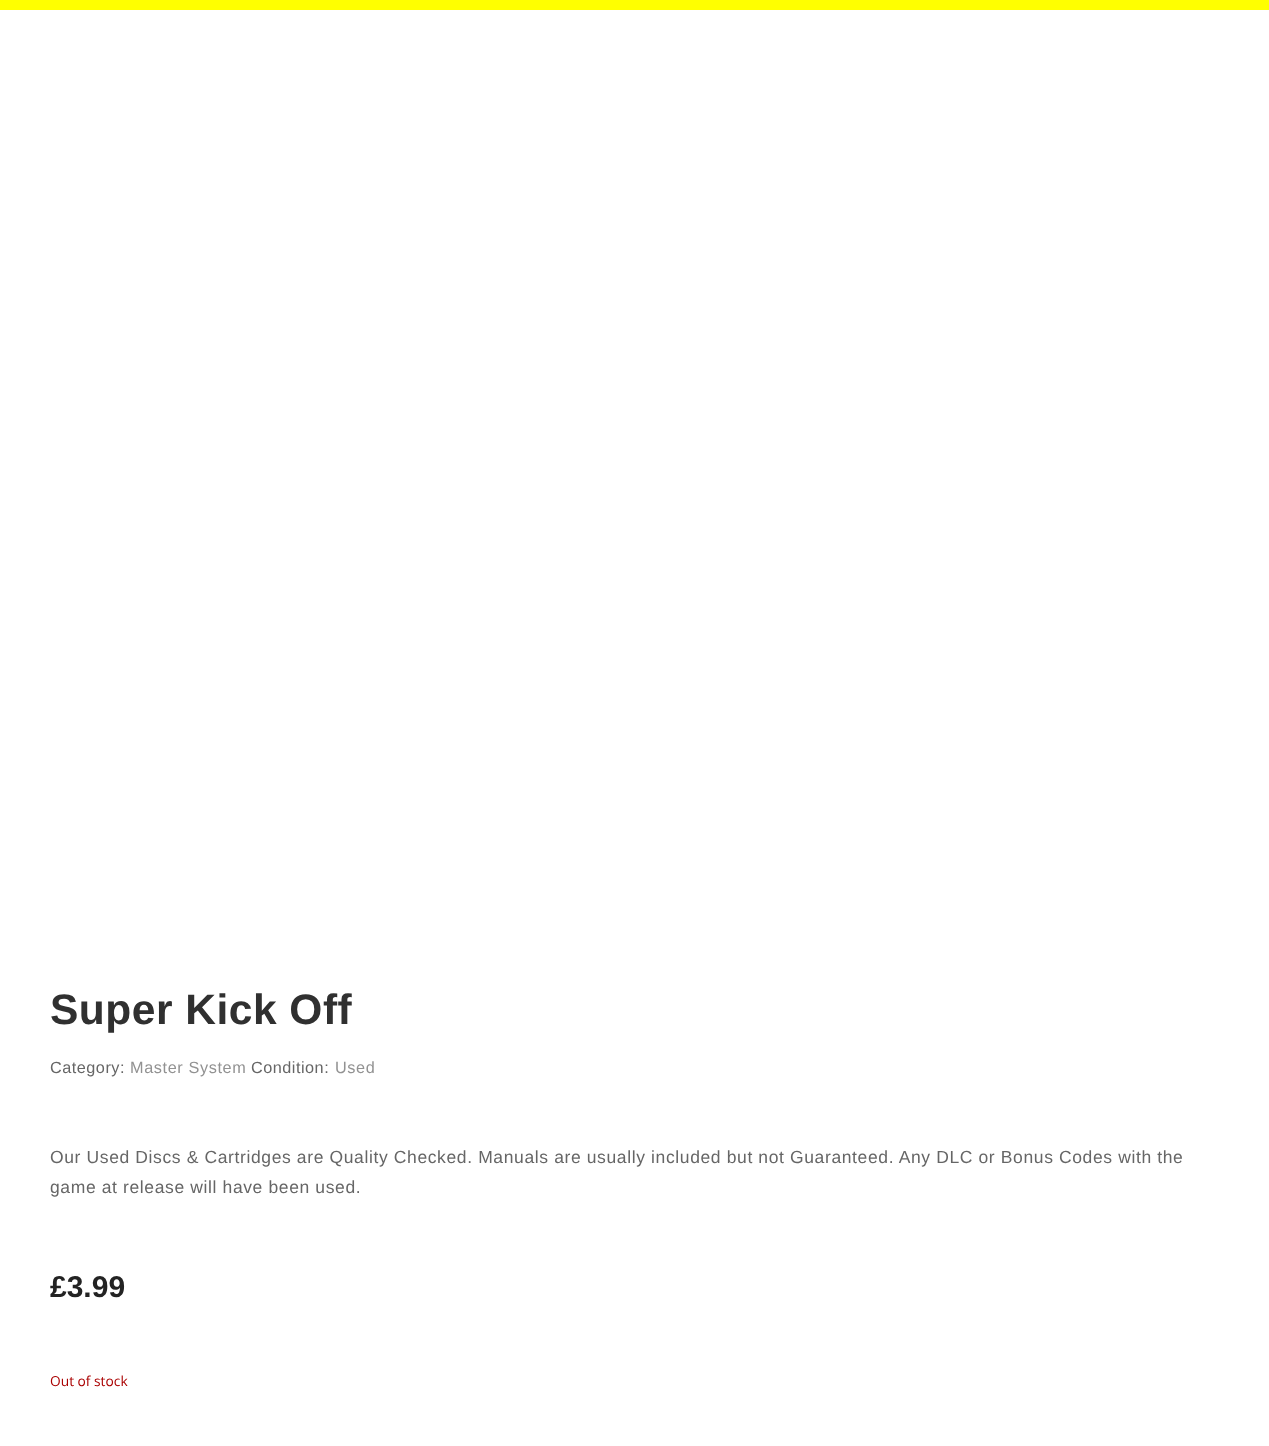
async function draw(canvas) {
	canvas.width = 1269;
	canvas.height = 1446;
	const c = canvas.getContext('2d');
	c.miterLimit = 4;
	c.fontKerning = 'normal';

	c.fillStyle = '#fff';
	c.fillRect(0, 0, 1269, 1446);
	c.fillStyle = '#ff0';
	c.fillRect(0, 0, 1269, 10);
	c.letterSpacing = '0.5px';
	c.font = 'bold 42.5px Liberation Sans';
	c.fillStyle = '#303030';
	c.fillText('Super Kick Off', 50, 1024);
	c.font = '16.25px Liberation Sans';
	c.fillStyle = '#666';
	c.fillText('Category:', 50, 1073);
	c.letterSpacing = '0.62px';
	c.fillStyle = '#929292';
	c.fillText('Master System', 130, 1073);
	c.letterSpacing = '0.5px';
	c.fillStyle = '#666';
	c.fillText('Condition:', 251, 1073);
	c.letterSpacing = '0.62px';
	c.fillStyle = '#929292';
	c.fillText('Used', 335, 1073);
	c.font = '17.5px Liberation Sans';
	c.fillStyle = '#666';
	c.fillText('Our Used Discs & Cartridges are Quality Checked. Manuals are usually included but not Guaranteed. Any DLC or Bonus Codes with the', 50, 1163);
	c.fillText('game at release will have been used.', 50, 1193);
	c.letterSpacing = '0px';
	c.font = 'bold 30px Liberation Sans';
	c.fillStyle = '#232323';
	c.fillText('£3.99', 50, 1297);
	c.font = '13.75px Open Sans';
	c.fillStyle = '#a00';
	c.fillText('Out of stock', 50, 1386);
}

draw(document.querySelector('canvas'));
